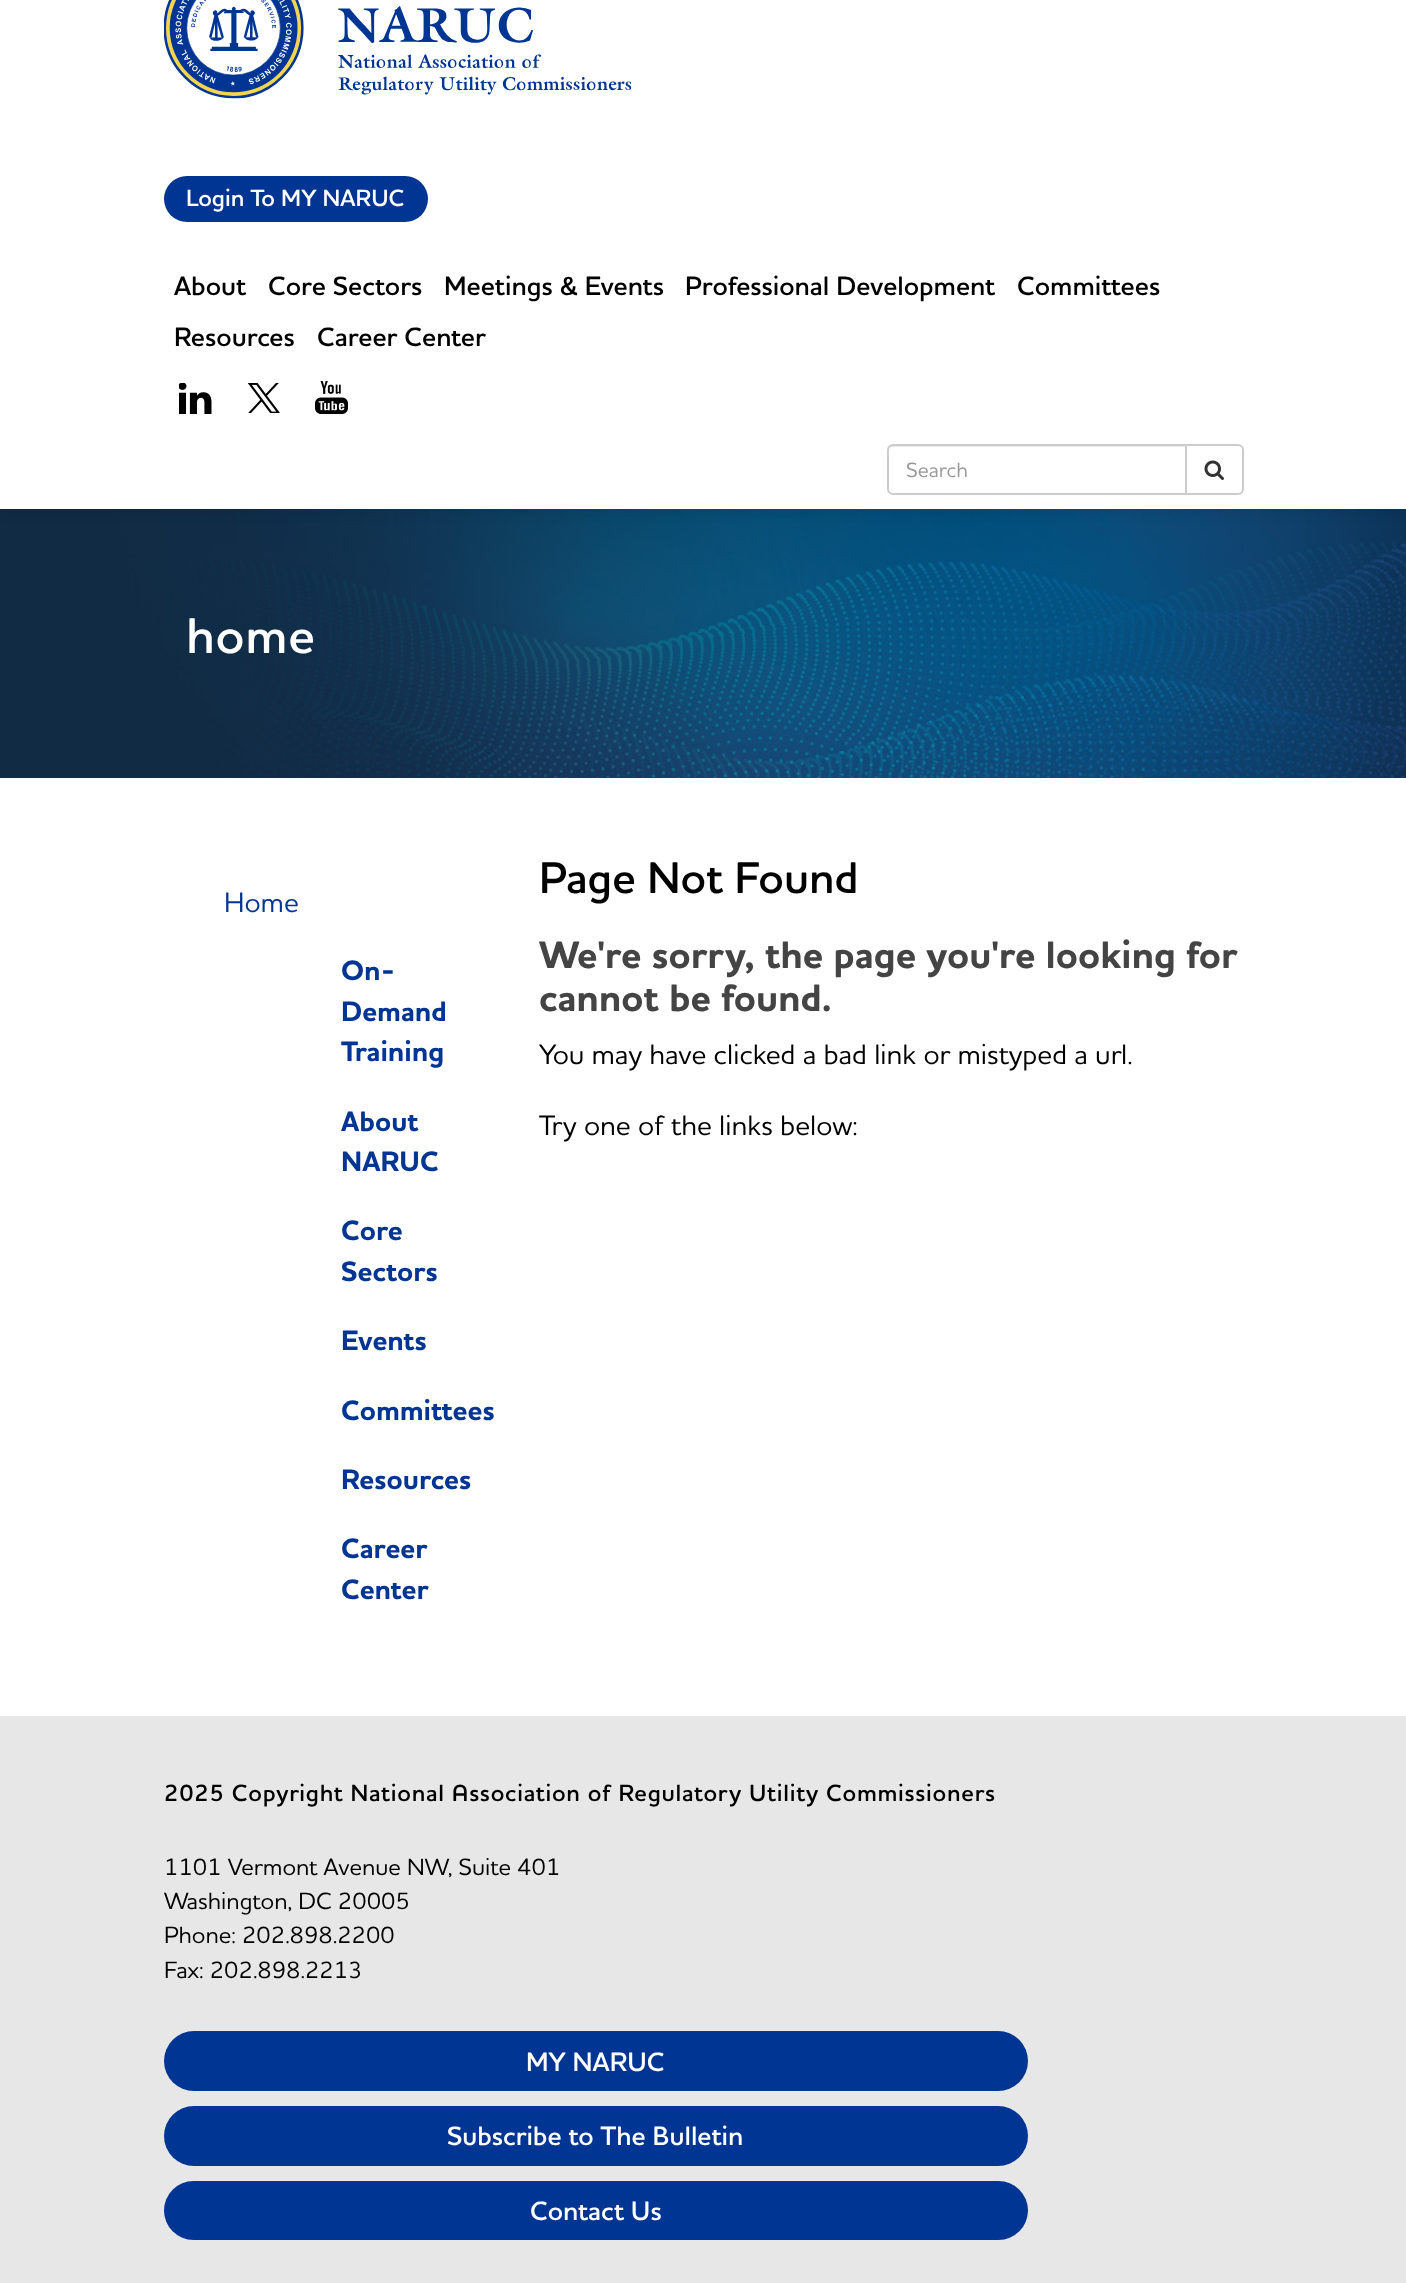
async function draw(canvas) {
	canvas.width = 1406;
	canvas.height = 2283;
	const c = canvas.getContext('2d');
	c.miterLimit = 4;
	c.fontKerning = 'normal';
	async function loadImage(src) {
		const img = new Image();
		img.src = src;
		await img.decode();
		return img;
	}

	c.fillStyle = '#fff';
	c.fillRect(0, 0, 1406, 2283);
	c.drawImage(await loadImage('img6.png'), 0, 509, 1406, 269);
	c.fillStyle = '#0000001a';
	c.filter = 'blur(7.5px)';
	c.beginPath();
	c.rect(0, -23, 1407, 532);
	c.fill();
	c.filter = 'none';
	c.fillStyle = '#fff';
	c.fillRect(0, 0, 1406, 509);
	c.drawImage(await loadImage('img1.png'), 164, 0, 468, 99);
	c.fillStyle = '#003594';
	c.beginPath();
	c.roundRect(164, 176, 264, 46, 23);
	c.fill();
	c.font = '600 24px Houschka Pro';
	c.fillStyle = '#fff';
	c.fillText('Login To MY NARUC', 186, 206);
	c.font = '600 27px Houschka Pro';
	c.fillStyle = '#000';
	for (const [text, x, y] of [
		['About', 174, 295],
		['Core Sectors', 268, 295],
		['Meetings & Events', 444, 295],
		['Professional Development', 685, 295],
		['Committees', 1017, 295],
		['Resources', 174, 346],
		['Career Center', 317, 346],
	]) {
		c.fillText(text, x, y);
	}
	c.drawImage(await loadImage('img2.png'), 179, 383, 33, 31);
	c.drawImage(await loadImage('img3.png'), 248, 383, 32, 30);
	c.drawImage(await loadImage('img4.png'), 315, 381, 33, 33);
	c.fillStyle = '#ececec';
	c.beginPath();
	c.moveTo(892, 447);
	c.lineTo(1185, 447);
	c.lineTo(1185, 446);
	c.lineTo(893, 446);
	c.bezierCurveTo(890, 446, 888, 448, 888, 451);
	c.lineTo(888, 452);
	c.bezierCurveTo(888, 449, 890, 447, 892, 447);
	c.closePath();
	c.fill();
	c.beginPath();
	c.roundRect(888, 445, 298, 49, [5, 0, 0, 5]);
	c.strokeStyle = '#ccc';
	c.lineWidth = 2;
	c.stroke();
	c.font = '500 21px Houschka Pro';
	c.fillStyle = '#999';
	c.fillText('Search', 906, 477);
	c.fillStyle = '#fff';
	c.beginPath();
	c.roundRect(1186, 445, 57, 49, [0, 5, 5, 0]);
	c.fill();
	c.stroke();
	c.drawImage(await loadImage('img5.png'), 1204, 460, 20, 20);
	c.letterSpacing = '0.75px';
	c.font = '600 51px Houschka Pro';
	c.fillText('home', 186, 653);
	c.letterSpacing = '0px';
	c.font = '500 28.5px Houschka Pro';
	c.fillStyle = '#003594';
	c.fillText('Home', 224, 912);
	c.font = 'bold 28.5px Houschka Pro';
	for (const [text, x, y] of [
		['On-', 341, 980],
		['Demand', 341, 1021],
		['Training', 341, 1061],
		['About', 341, 1131],
		['NARUC', 341, 1171],
		['Core', 341, 1240],
		['Sectors', 341, 1281],
		['Events', 341, 1350],
		['Committees', 341, 1420],
		['Resources', 341, 1489],
		['Career', 341, 1558],
		['Center', 341, 1599],
	]) {
		c.fillText(text, x, y);
	}
	c.font = '600 45px Houschka Pro';
	c.fillStyle = '#000';
	c.fillText('Page Not Found', 539, 893);
	c.font = 'bold 39px Houschka Pro';
	c.fillStyle = '#444';
	c.fillText('We\'re sorry, the page you\'re looking for', 539, 968);
	c.fillText('cannot be found.', 539, 1011);
	c.font = '500 28.5px Houschka Pro';
	c.fillStyle = '#000';
	c.fillText('You may have clicked a bad link or mistyped a url.', 539, 1064);
	c.fillText('Try one of the links below:', 539, 1135);
	c.fillStyle = '#e7e7e7';
	c.fillRect(0, 1716, 1406, 567);
	c.letterSpacing = '0.75px';
	c.wordSpacing = '0.25px';
	c.font = '600 24px Houschka Pro';
	c.fillStyle = '#000';
	c.fillText('2025 Copyright National Association of Regulatory Utility Commissioners', 164, 1801);
	c.letterSpacing = '0px';
	c.wordSpacing = '0px';
	c.font = '500 24px Houschka Pro';
	for (const [text, x, y] of [
		['1101 Vermont Avenue NW, Suite 401', 164, 1875],
		['Washington, DC 20005', 164, 1909],
		['Phone: 202.898.2200', 164, 1943],
		['Fax: 202.898.2213', 164, 1978],
	]) {
		c.fillText(text, x, y);
	}
	c.fillStyle = '#003594';
	c.beginPath();
	c.roundRect(164, 2031, 864, 60, 30);
	c.fill();
	c.font = '600 27px Houschka Pro';
	c.fillStyle = '#fff';
	c.fillText('MY NARUC', 526, 2071);
	c.fillStyle = '#003594';
	c.beginPath();
	c.roundRect(164, 2106, 864, 60, 30);
	c.fill();
	c.fillStyle = '#fff';
	c.fillText('Subscribe to The Bulletin', 447, 2145);
	c.fillStyle = '#003594';
	c.beginPath();
	c.roundRect(164, 2181, 864, 59, 29.5);
	c.fill();
	c.fillStyle = '#fff';
	c.fillText('Contact Us', 530, 2220);
}

draw(document.querySelector('canvas'));
